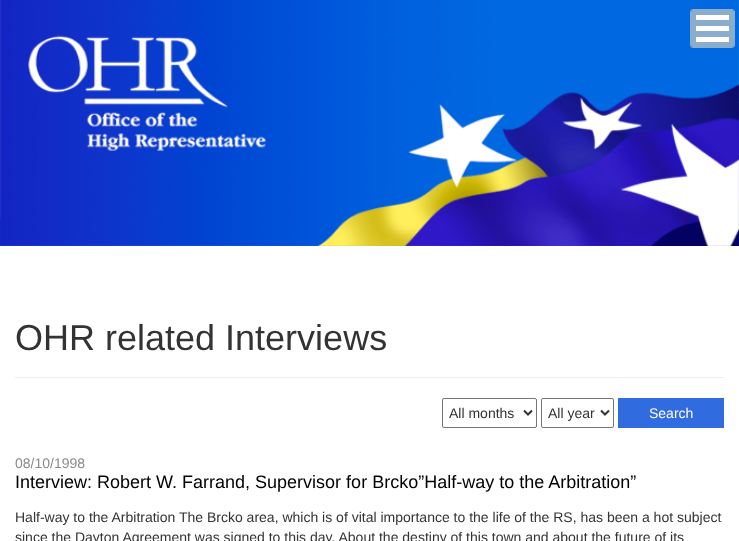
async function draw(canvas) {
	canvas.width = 739;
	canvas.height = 541;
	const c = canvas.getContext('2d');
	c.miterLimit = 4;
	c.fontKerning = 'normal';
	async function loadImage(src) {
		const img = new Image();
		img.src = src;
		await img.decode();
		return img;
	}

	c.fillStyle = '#fff';
	c.fillRect(0, 0, 739, 541);
	c.drawImage(await loadImage('img1.png'), 0, 0, 739, 246);
	c.beginPath();
	c.roundRect(690.5, 9.5, 44, 38, 2.5);
	c.strokeStyle = '#8badcc';
	c.stroke();
	c.fillStyle = '#8badcc';
	c.beginPath();
	c.roundRect(691, 10, 43, 37, 2);
	c.fill();
	for (const [x, y, w, h, color] of [
		[696, 15, 33, 5, '#fff'],
		[696, 26, 33, 5, '#fff'],
		[696, 37, 33, 5, '#fff'],
		[15, 377, 709, 1, '#eee'],
	]) {
		c.fillStyle = color;
		c.fillRect(x, y, w, h);
	}
	c.font = '36px Liberation Sans';
	c.fillStyle = '#333';
	c.fillText('OHR related Interviews', 15, 350);
	c.beginPath();
	c.roundRect(442.5, 398.5, 94, 29, 1.5);
	c.strokeStyle = '#767676';
	c.stroke();
	c.beginPath();
	c.moveTo(524, 410.5);
	c.lineTo(528, 414.5);
	c.lineTo(532, 410.5);
	c.strokeStyle = '#333';
	c.lineWidth = 2;
	c.stroke();
	c.font = '14px Liberation Sans';
	c.fillText('All months', 449, 418);
	c.beginPath();
	c.roundRect(541.5, 398.5, 72, 29, 1.5);
	c.strokeStyle = '#767676';
	c.lineWidth = 1;
	c.stroke();
	c.beginPath();
	c.moveTo(601, 410.5);
	c.lineTo(605, 414.5);
	c.lineTo(609, 410.5);
	c.strokeStyle = '#333';
	c.lineWidth = 2;
	c.stroke();
	c.fillText('All year', 548, 418);
	c.fillStyle = '#306be0';
	c.fillRect(618, 398, 106, 30);
	c.fillStyle = '#fff';
	c.fillText('Search', 649, 418);
	c.fillStyle = '#8a8a8a';
	c.fillText('08/10/1998', 15, 468);
	c.font = '18px Liberation Sans';
	c.fillStyle = '#000';
	c.fillText('Interview: Robert W. Farrand, Supervisor for Brcko”Half-way to the Arbitration”', 15, 488);
	c.font = '14px Liberation Sans';
	c.fillStyle = '#333';
	c.fillText('Half-way to the Arbitration The Brcko area, which is of vital importance to the life of the RS, has been a hot subject', 15, 522);
	c.fillText('since the Dayton Agreement was signed to this day. About the destiny of this town and about the future of its', 15, 542);
}

draw(document.querySelector('canvas'));
